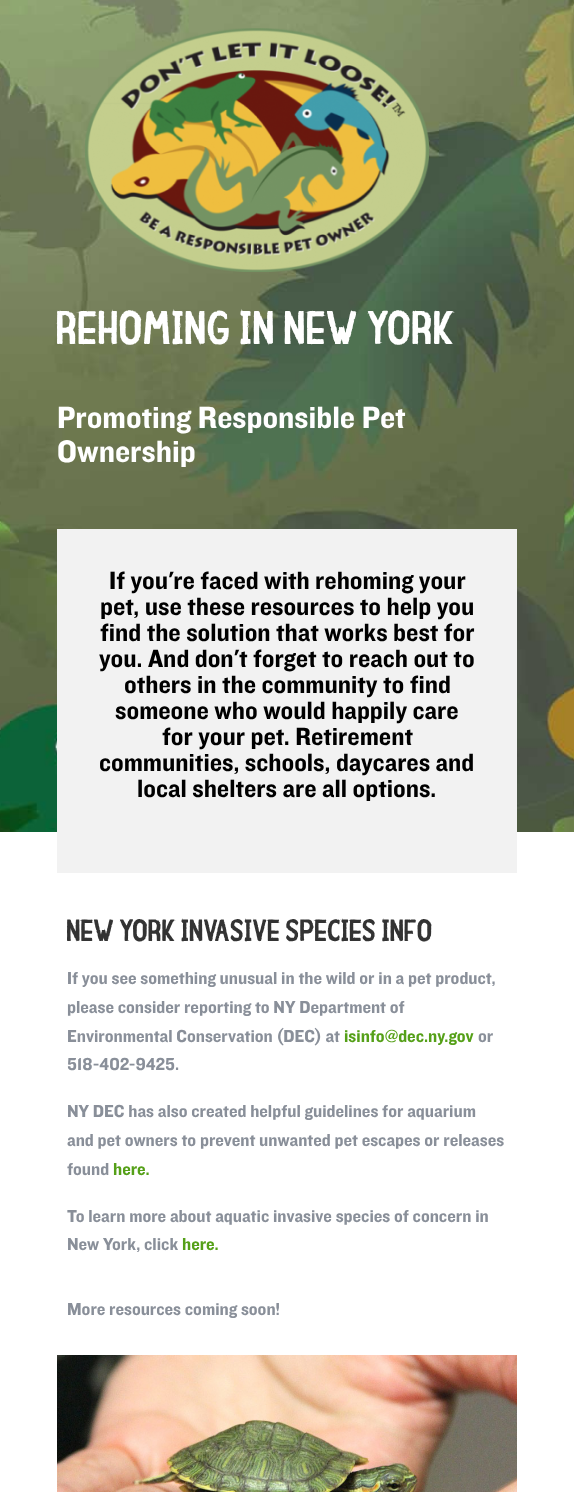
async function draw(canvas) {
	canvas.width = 574;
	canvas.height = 1492;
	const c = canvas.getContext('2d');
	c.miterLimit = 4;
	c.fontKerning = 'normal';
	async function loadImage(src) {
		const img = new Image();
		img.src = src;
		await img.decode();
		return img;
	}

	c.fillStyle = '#fff';
	c.fillRect(0, 0, 574, 1492);
	c.drawImage(await loadImage('img1.png'), 0, 0, 574, 832);
	c.drawImage(await loadImage('img2.png'), 85, 28, 344, 244);
	c.letterSpacing = '2px';
	c.font = 'bold 46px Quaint';
	c.fillText('REHOMING IN NEW YORK', 57, 344);
	c.letterSpacing = '0px';
	c.font = '500 32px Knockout';
	c.fillText('Promoting Responsible Pet', 57, 428);
	c.fillText('Ownership', 57, 462);
	c.fillStyle = '#f2f2f2';
	c.fillRect(57, 529, 460, 344);
	c.font = '500 26px Knockout';
	c.fillStyle = '#000';
	for (const [text, x, y] of [
		['If you\'re faced with rehoming your', 109, 589],
		['pet, use these resources to help you', 100, 615],
		['find the solution that works best for', 100, 641],
		['you. And don\'t forget to reach out to', 99, 667],
		['others in the community to find', 124, 693],
		['someone who would happily care', 115, 719],
		['for your pet. Retirement', 162, 745],
		['communities, schools, daycares and', 99, 771],
		['local shelters are all options.', 137, 797],
	]) {
		c.fillText(text, x, y);
	}
	c.letterSpacing = '1px';
	c.font = 'bold 30px Quaint';
	c.fillStyle = '#333';
	c.fillText('NEW YORK INVASIVE SPECIES INFO', 67, 941);
	c.letterSpacing = '0px';
	c.font = '500 18px Knockout';
	c.fillStyle = '#898f99';
	for (const [text, x, y] of [
		['If you see something unusual in the wild or in a pet product,', 67, 984],
		['please consider reporting to NY Department of', 67, 1013],
		['Environmental Conservation (DEC) at', 67, 1042],
	]) {
		c.fillText(text, x, y);
	}
	c.fillStyle = '#55a018';
	c.fillText('isinfo@dec.ny.gov', 344, 1042);
	c.fillStyle = '#898f99';
	for (const [text, x, y] of [
		['or', 478, 1042],
		['518-402-9425.', 67, 1070],
		['NY DEC has also created helpful guidelines for aquarium', 67, 1117],
		['and pet owners to prevent unwanted pet escapes or releases', 67, 1146],
		['found', 67, 1175],
	]) {
		c.fillText(text, x, y);
	}
	c.fillStyle = '#55a018';
	c.fillText('here.', 113, 1175);
	c.fillStyle = '#898f99';
	c.fillText('To learn more about aquatic invasive species of concern in', 67, 1222);
	c.fillText('New York, click', 67, 1250);
	c.fillStyle = '#55a018';
	c.fillText('here.', 182, 1250);
	c.fillStyle = '#898f99';
	c.fillText('More resources coming soon!', 67, 1315);
	c.drawImage(await loadImage('img3.png'), 57, 1355, 460, 137);
}

draw(document.querySelector('canvas'));
